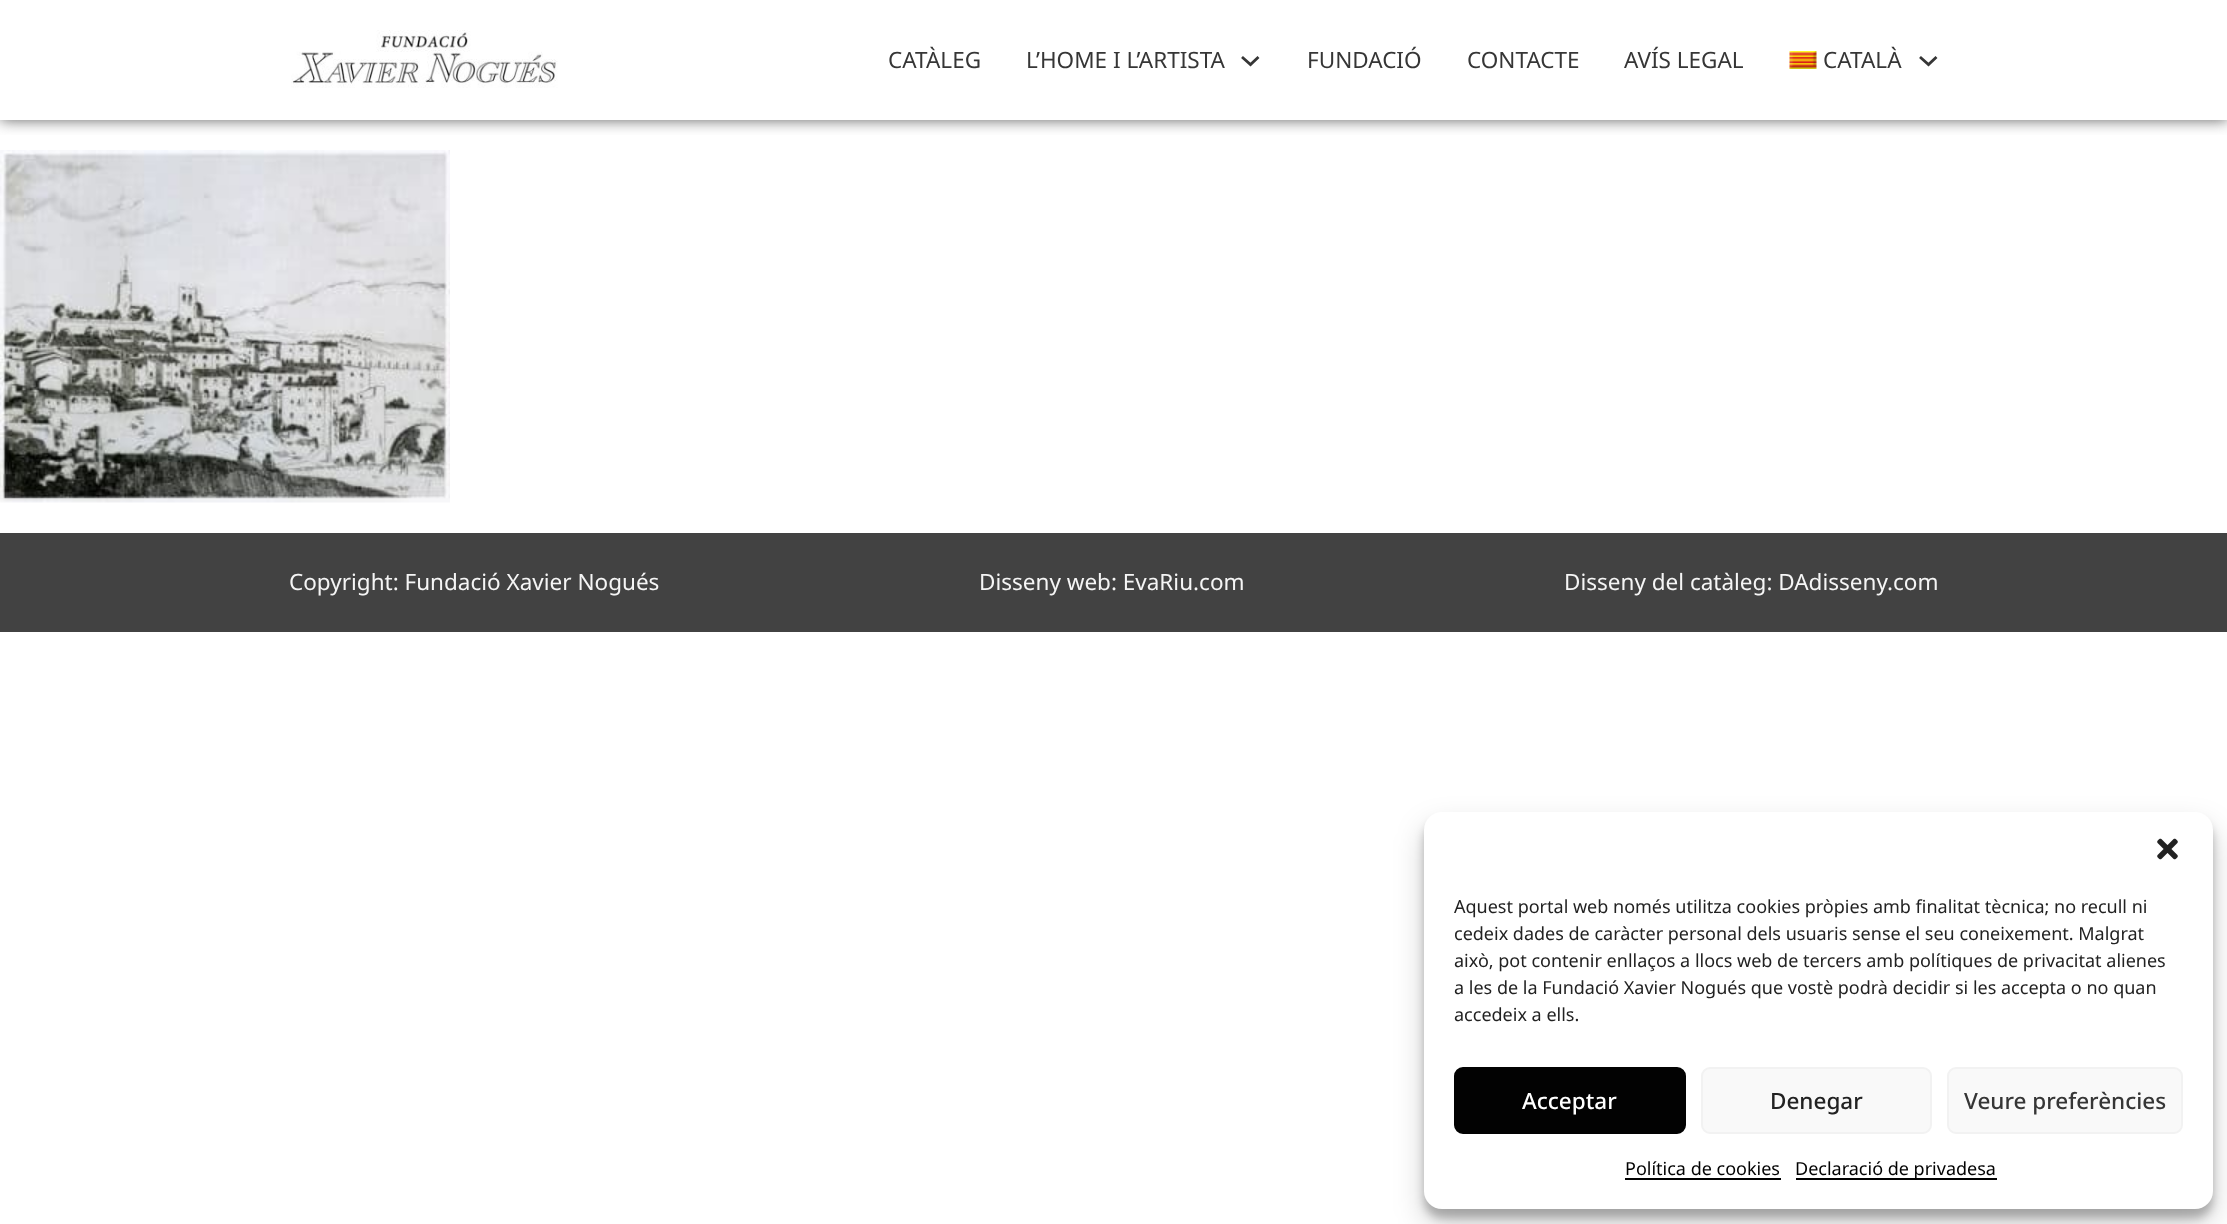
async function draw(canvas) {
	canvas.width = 2227;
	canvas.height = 1224;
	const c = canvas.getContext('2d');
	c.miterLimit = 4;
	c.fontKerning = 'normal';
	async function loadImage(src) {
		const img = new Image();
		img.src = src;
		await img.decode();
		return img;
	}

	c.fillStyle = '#fff';
	c.fillRect(0, 0, 2227, 1224);
	c.save();
	c.beginPath();
	c.rect(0, 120, 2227, 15);
	c.clip();
	c.fillStyle = '#616161';
	c.filter = 'blur(7.5px)';
	c.beginPath();
	c.rect(0, 0, 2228, 120);
	c.fill();
	c.filter = 'none';
	c.restore();
	c.drawImage(await loadImage('img1.png'), 291, 30, 267, 58);
	c.font = '22.5px Noto Sans';
	c.fillStyle = '#363636';
	c.fillText('CATÀLEG', 888, 68);
	c.fillText('L’HOME I L’ARTISTA', 1026, 68);
	c.beginPath();
	c.moveTo(1242, 57);
	c.lineTo(1250.5, 64.5);
	c.lineTo(1258.5, 57);
	c.strokeStyle = '#363636';
	c.lineWidth = 2.8;
	c.stroke();
	for (const [text, x, y] of [
		['FUNDACIÓ', 1307, 68],
		['CONTACTE', 1467, 68],
		['AVÍS LEGAL', 1624, 68],
	]) {
		c.fillText(text, x, y);
	}
	c.drawImage(await loadImage('img2.png'), 1789, 51, 28, 18);
	c.fillText('CATALÀ', 1823, 68);
	c.beginPath();
	c.moveTo(1920, 57);
	c.lineTo(1928.5, 64.5);
	c.lineTo(1936.5, 57);
	c.stroke();
	c.drawImage(await loadImage('img3.png'), 0, 150, 450, 353);
	c.fillStyle = '#424242';
	c.fillRect(0, 533, 2227, 99);
	c.fillStyle = '#f5f5f5';
	for (const [text, x, y] of [
		['Copyright: Fundació Xavier Nogués', 289, 590],
		['Disseny web: EvaRiu.com', 979, 590],
		['Disseny del catàleg: DAdisseny.com', 1564, 590],
	]) {
		c.fillText(text, x, y);
	}
	c.fillStyle = '#0000003b';
	c.filter = 'blur(4.5px)';
	c.beginPath();
	c.roundRect(1424, 821, 789, 397, 18);
	c.fill();
	c.filter = 'none';
	c.fillStyle = '#00000030';
	c.filter = 'blur(15px)';
	c.beginPath();
	c.roundRect(1424, 827, 789, 397, 18);
	c.fill();
	c.filter = 'none';
	c.fillStyle = '#fff';
	c.beginPath();
	c.roundRect(1424, 812, 789, 397, 18);
	c.fill();
	c.drawImage(await loadImage('img4.png'), 2157, 838, 21, 22);
	c.font = '18px Noto Sans';
	c.fillStyle = '#222';
	for (const [text, x, y] of [
		['Aquest portal web només utilitza cookies pròpies amb finalitat tècnica; no recull ni', 1454, 913],
		['cedeix dades de caràcter personal dels usuaris sense el seu coneixement. Malgrat', 1454, 940],
		['això, pot contenir enllaços a llocs web de tercers amb polítiques de privacitat alienes', 1454, 967],
		['a les de la Fundació Xavier Nogués que vostè podrà decidir si les accepta o no quan', 1454, 994],
		['accedeix a ells.', 1454, 1021],
	]) {
		c.fillText(text, x, y);
	}
	c.fillStyle = '#020202';
	c.beginPath();
	c.roundRect(1455, 1068, 230, 65, 8);
	c.fill();
	c.strokeStyle = '#020202';
	c.lineWidth = 2;
	c.stroke();
	c.font = '500 22.5px Noto Sans';
	c.fillStyle = '#fff';
	c.fillText('Acceptar', 1522, 1109);
	c.fillStyle = '#f9f9f9';
	c.beginPath();
	c.roundRect(1702, 1068, 229, 65, 8);
	c.fill();
	c.strokeStyle = '#f2f2f2';
	c.stroke();
	c.fillStyle = '#222';
	c.fillText('Denegar', 1770, 1109);
	c.fillStyle = '#f9f9f9';
	c.beginPath();
	c.roundRect(1948, 1068, 234, 65, 8);
	c.fill();
	c.stroke();
	c.fillStyle = '#363636';
	c.fillText('Veure preferències', 1964, 1109);
	c.font = '18px Noto Sans';
	c.fillStyle = '#020202';
	c.fillText('Política de cookies', 1625, 1175);
	c.fillRect(1625, 1178, 156, 2);
	c.fillRect(1796, 1178, 201, 2);
	c.fillText('Declaració de privadesa', 1795, 1175);
}

draw(document.querySelector('canvas'));
